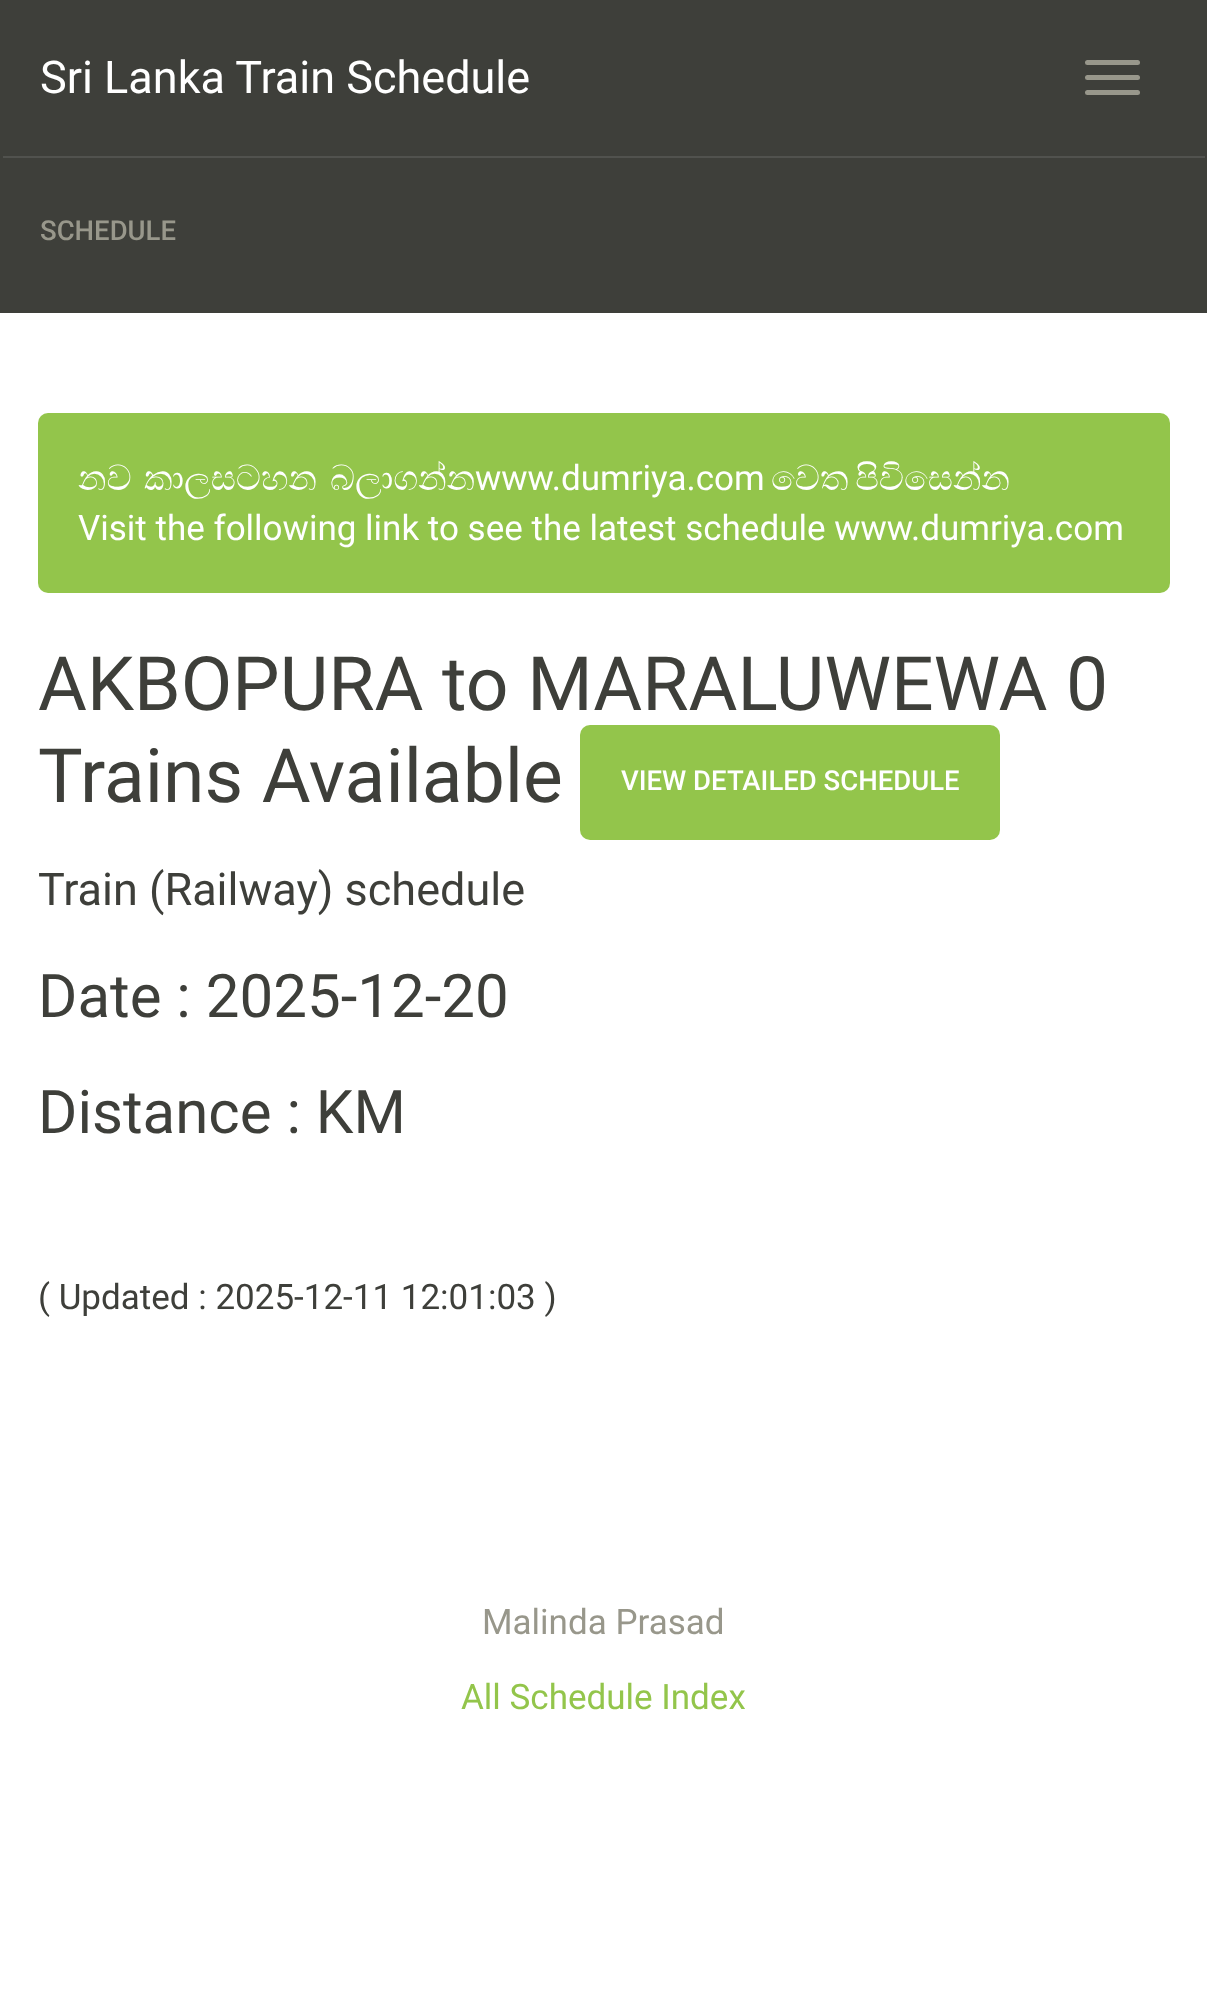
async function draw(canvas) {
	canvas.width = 1207;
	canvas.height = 2002;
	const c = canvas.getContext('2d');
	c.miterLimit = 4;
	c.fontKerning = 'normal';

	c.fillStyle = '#fff';
	c.fillRect(0, 0, 1207, 2002);
	c.fillStyle = '#3e3f3a';
	c.fillRect(0, 0, 1207, 313);
	c.font = '45px Roboto';
	c.fillStyle = '#fff';
	c.fillText('Sri Lanka Train Schedule', 40, 93);
	c.fillStyle = '#98978b';
	c.beginPath();
	c.roundRect(1085, 60, 55, 5, 2.5);
	c.fill();
	c.beginPath();
	c.roundRect(1085, 75, 55, 5, 2.5);
	c.fill();
	c.beginPath();
	c.roundRect(1085, 90, 55, 5, 2.5);
	c.fill();
	c.fillStyle = '#51524e';
	c.fillRect(3, 156, 1202, 2);
	c.font = '500 27.5px Roboto';
	c.fillStyle = '#98978b';
	c.fillText('SCHEDULE', 40, 240);
	c.fillStyle = '#93c54b';
	c.beginPath();
	c.roundRect(38, 413, 1132, 180, 10);
	c.fill();
	c.font = '35px FreeSerif';
	c.fillStyle = '#fff';
	for (const [text, x, y] of [
		['නව', 78, 490],
		['කාලසටහන', 144, 490],
		['බලාගන්න', 330, 490],
	]) {
		c.fillText(text, x, y);
	}
	c.font = '35px Roboto';
	c.fillText('www.dumriya.com', 475, 490);
	c.wordSpacing = '-2px';
	c.font = '35px FreeSerif';
	c.fillText('වෙත පිවිසෙන්න', 771, 490);
	c.wordSpacing = '0px';
	c.font = '35px Roboto';
	c.fillText('Visit the following link to see the latest schedule www.dumriya.com', 78, 540);
	c.font = '75px Roboto';
	c.fillStyle = '#3e3f3a';
	c.fillText('AKBOPURA to MARALUWEWA 0', 38, 710);
	c.fillText('Trains Available', 38, 802);
	c.fillStyle = '#93c54b';
	c.beginPath();
	c.roundRect(580, 725, 420, 115, 10);
	c.fill();
	c.font = '500 27.5px Roboto';
	c.fillStyle = '#fff';
	c.fillText('VIEW DETAILED SCHEDULE', 621, 790);
	c.font = '45px Roboto';
	c.fillStyle = '#3e3f3a';
	c.fillText('Train (Railway) schedule', 38, 905);
	c.font = '60px Roboto';
	c.fillText('Date : 2025-12-20', 38, 1017);
	c.fillText('Distance : KM', 38, 1133);
	c.font = '35px Roboto';
	c.fillText('( Updated : 2025-12-11 12:01:03 )', 38, 1309);
	c.fillStyle = '#98978b';
	c.fillText('Malinda Prasad', 482, 1634);
	c.fillStyle = '#93c54b';
	c.fillText('All Schedule Index', 461, 1709);
}

draw(document.querySelector('canvas'));
